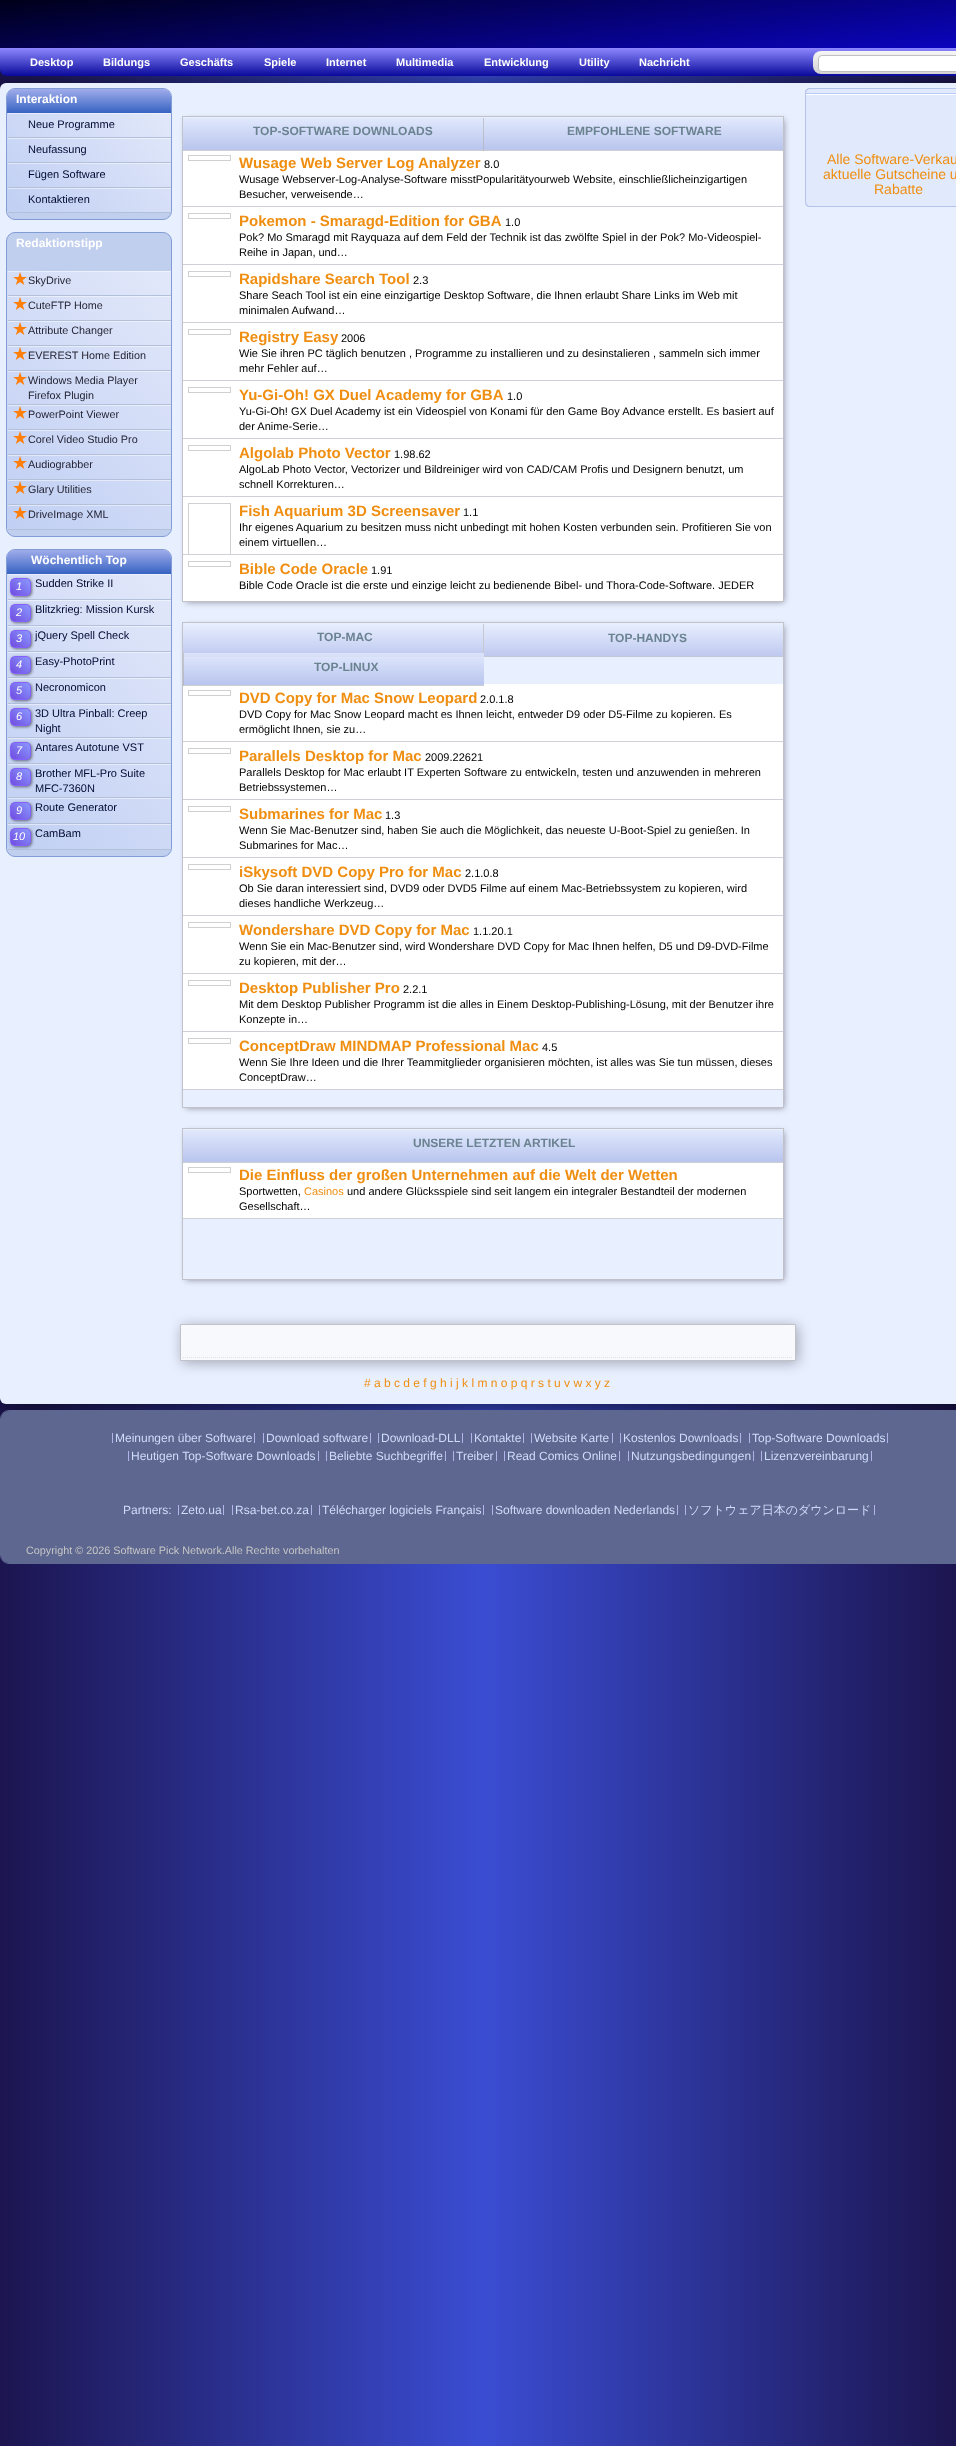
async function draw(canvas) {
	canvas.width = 956;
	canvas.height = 2446;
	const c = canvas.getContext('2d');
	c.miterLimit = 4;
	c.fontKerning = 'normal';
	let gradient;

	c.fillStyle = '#fff';
	c.fillRect(0, 0, 956, 2446);
	gradient = c.createLinearGradient(0, 801, 956, 801);
	gradient.addColorStop(0, '#1c1550');
	gradient.addColorStop(0.5, '#3a4cd1');
	gradient.addColorStop(0.51, '#3a4cd1');
	gradient.addColorStop(1, '#1c1550');
	c.fillStyle = gradient;
	c.fillRect(0, 69, 956, 2377);
	c.fillStyle = '#000000ab';
	c.filter = 'blur(16px)';
	c.beginPath();
	c.roundRect(4, 87, 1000, 1321, 6);
	c.fill();
	c.filter = 'none';
	gradient = c.createLinearGradient(490, -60, 510, 108);
	gradient.addColorStop(0, '#000018');
	gradient.addColorStop(1, '#0b04c5');
	c.fillStyle = gradient;
	c.fillRect(0, 0, 956, 48);
	gradient = c.createLinearGradient(500, 76, 500, 48);
	gradient.addColorStop(0, '#09099b');
	gradient.addColorStop(1, '#8d88ff');
	c.fillStyle = gradient;
	c.beginPath();
	c.moveTo(0, 48);
	c.lineTo(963, 48);
	c.lineTo(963, 69);
	c.bezierCurveTo(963, 73, 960, 76, 956, 76);
	c.lineTo(7, 76);
	c.bezierCurveTo(3, 76, 0, 73, 0, 69);
	c.closePath();
	c.fill();
	c.font = 'bold 11px Liberation Sans';
	c.fillStyle = '#fff';
	for (const [text, x, y] of [
		['Desktop', 30, 66],
		['Bildungs', 103, 66],
		['Geschäfts', 180, 66],
		['Spiele', 264, 66],
		['Internet', 326, 66],
		['Multimedia', 396, 66],
		['Entwicklung', 484, 66],
		['Utility', 579, 66],
		['Nachricht', 639, 66],
	]) {
		c.fillText(text, x, y);
	}
	gradient = c.createLinearGradient(903, 51, 903, 74);
	gradient.addColorStop(0, '#f6f6f6');
	gradient.addColorStop(1, '#d2d1d0');
	c.fillStyle = gradient;
	c.beginPath();
	c.roundRect(813, 51, 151, 23, 8);
	c.fill();
	c.fillStyle = '#ffffff1a';
	c.beginPath();
	c.moveTo(818, 68);
	c.lineTo(818, 69);
	c.bezierCurveTo(818, 71, 820, 73, 822, 73);
	c.lineTo(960, 73);
	c.bezierCurveTo(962, 73, 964, 71, 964, 69);
	c.lineTo(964, 68);
	c.bezierCurveTo(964, 70, 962, 72, 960, 72);
	c.lineTo(822, 72);
	c.bezierCurveTo(820, 72, 818, 70, 818, 68);
	c.closePath();
	c.fill();
	c.fillStyle = '#fff';
	c.beginPath();
	c.roundRect(818.5, 55.5, 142, 16, 3.5);
	c.fill();
	c.strokeStyle = '#c0c0c0';
	c.stroke();
	c.fillStyle = '#e8efff';
	c.beginPath();
	c.roundRect(0, 83, 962, 1321, 6);
	c.fill();
	for (const [x, y, w, h, color] of [
		[183, 1130, 600, 31, '#d8e3fa'],
		[183, 657, 301, 27, '#d8e3fa'],
		[183, 118, 600, 31, '#d8e3fa'],
	]) {
		c.fillStyle = color;
		c.fillRect(x, y, w, h);
	}
	c.fillStyle = '#c1cfee';
	c.beginPath();
	c.roundRect(6.5, 88.5, 165, 131, 8.5);
	c.fill();
	c.strokeStyle = '#829dd5';
	c.stroke();
	gradient = c.createLinearGradient(89, 113, 89, 89);
	gradient.addColorStop(0, '#3663c2');
	gradient.addColorStop(1, '#a0aceb');
	c.fillStyle = gradient;
	c.beginPath();
	c.roundRect(7, 89, 164, 24, [8, 8, 0, 0]);
	c.fill();
	c.font = 'bold 12px Liberation Sans';
	c.fillStyle = '#fff';
	c.fillText('Interaktion', 16, 103);
	gradient = c.createLinearGradient(158, 99, 20, 227);
	gradient.addColorStop(0, '#e2e8fa');
	gradient.addColorStop(1, '#c0cff3');
	c.fillStyle = gradient;
	c.fillRect(7, 113, 164, 100);
	gradient = c.createLinearGradient(158, 99, 20, 227);
	gradient.addColorStop(0, '#eff3fc');
	gradient.addColorStop(1, '#dde5f9');
	c.fillStyle = gradient;
	c.fillRect(8, 188, 163, 1);
	c.fillRect(8, 163, 163, 1);
	c.fillRect(8, 138, 163, 1);
	c.fillRect(8, 113, 163, 1);
	c.fillStyle = '#b3c0da';
	c.fillRect(8, 137, 163, 1);
	c.font = '11px Liberation Sans';
	c.fillStyle = '#000932';
	c.fillText('Neue Programme', 28, 128);
	c.fillStyle = '#b3c0da';
	c.fillRect(8, 162, 163, 1);
	c.fillStyle = '#000932';
	c.fillText('Neufassung', 28, 153);
	c.fillStyle = '#b3c0da';
	c.fillRect(8, 187, 163, 1);
	c.fillStyle = '#000932';
	c.fillText('Fügen Software', 28, 178);
	c.fillStyle = '#b3c0da';
	c.fillRect(8, 212, 163, 1);
	c.fillStyle = '#000932';
	c.fillText('Kontaktieren', 28, 203);
	c.fillStyle = '#c1cfee';
	c.beginPath();
	c.roundRect(6.5, 232.5, 165, 304, 8.5);
	c.fill();
	c.stroke();
	c.font = 'bold 12px Liberation Sans';
	c.fillStyle = '#fff';
	c.fillText('Redaktionstipp', 16, 247);
	gradient = c.createLinearGradient(197, 299, -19, 502);
	gradient.addColorStop(0, '#e2e8fa');
	gradient.addColorStop(1, '#c0cff3');
	c.fillStyle = gradient;
	c.fillRect(7, 271, 164, 259);
	gradient = c.createLinearGradient(197, 299, -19, 502);
	gradient.addColorStop(0, '#eff3fc');
	gradient.addColorStop(1, '#dde5f9');
	c.fillStyle = gradient;
	c.fillRect(8, 505, 163, 1);
	c.fillRect(8, 480, 163, 1);
	c.fillRect(8, 455, 163, 1);
	c.fillRect(8, 430, 163, 1);
	c.fillRect(8, 405, 163, 1);
	c.fillRect(8, 371, 163, 1);
	c.fillRect(8, 346, 163, 1);
	c.fillRect(8, 321, 163, 1);
	c.fillRect(8, 296, 163, 1);
	c.fillRect(8, 271, 163, 1);
	c.fillStyle = '#b3c0da';
	c.fillRect(8, 295, 163, 1);
	c.font = '18px DejaVu Sans';
	c.fillStyle = '#ff7f0a';
	c.fillText('★', 12, 285);
	c.font = '10.8px Liberation Sans';
	c.fillStyle = '#1f1f2f';
	c.fillText('SkyDrive', 28, 284);
	c.fillStyle = '#b3c0da';
	c.fillRect(8, 320, 163, 1);
	c.font = '18px DejaVu Sans';
	c.fillStyle = '#ff7f0a';
	c.fillText('★', 12, 310);
	c.font = '10.8px Liberation Sans';
	c.fillStyle = '#1f1f2f';
	c.fillText('CuteFTP Home', 28, 309);
	c.fillStyle = '#b3c0da';
	c.fillRect(8, 345, 163, 1);
	c.font = '18px DejaVu Sans';
	c.fillStyle = '#ff7f0a';
	c.fillText('★', 12, 335);
	c.font = '10.8px Liberation Sans';
	c.fillStyle = '#1f1f2f';
	c.fillText('Attribute Changer', 28, 334);
	c.fillStyle = '#b3c0da';
	c.fillRect(8, 370, 163, 1);
	c.font = '18px DejaVu Sans';
	c.fillStyle = '#ff7f0a';
	c.fillText('★', 12, 360);
	c.font = '10.8px Liberation Sans';
	c.fillStyle = '#1f1f2f';
	c.fillText('EVEREST Home Edition', 28, 359);
	c.fillStyle = '#b3c0da';
	c.fillRect(8, 404, 163, 1);
	c.font = '18px DejaVu Sans';
	c.fillStyle = '#ff7f0a';
	c.fillText('★', 12, 385);
	c.font = '10.8px Liberation Sans';
	c.fillStyle = '#1f1f2f';
	c.fillText('Windows Media Player', 28, 384);
	c.fillText('Firefox Plugin', 28, 399);
	c.fillStyle = '#b3c0da';
	c.fillRect(8, 429, 163, 1);
	c.font = '18px DejaVu Sans';
	c.fillStyle = '#ff7f0a';
	c.fillText('★', 12, 419);
	c.font = '10.8px Liberation Sans';
	c.fillStyle = '#1f1f2f';
	c.fillText('PowerPoint Viewer', 28, 418);
	c.fillStyle = '#b3c0da';
	c.fillRect(8, 454, 163, 1);
	c.font = '18px DejaVu Sans';
	c.fillStyle = '#ff7f0a';
	c.fillText('★', 12, 444);
	c.font = '10.8px Liberation Sans';
	c.fillStyle = '#1f1f2f';
	c.fillText('Corel Video Studio Pro', 28, 443);
	c.fillStyle = '#b3c0da';
	c.fillRect(8, 479, 163, 1);
	c.font = '18px DejaVu Sans';
	c.fillStyle = '#ff7f0a';
	c.fillText('★', 12, 469);
	c.font = '10.8px Liberation Sans';
	c.fillStyle = '#1f1f2f';
	c.fillText('Audiograbber', 28, 468);
	c.fillStyle = '#b3c0da';
	c.fillRect(8, 504, 163, 1);
	c.font = '18px DejaVu Sans';
	c.fillStyle = '#ff7f0a';
	c.fillText('★', 12, 494);
	c.font = '10.8px Liberation Sans';
	c.fillStyle = '#1f1f2f';
	c.fillText('Glary Utilities', 28, 493);
	c.fillStyle = '#b3c0da';
	c.fillRect(8, 529, 163, 1);
	c.font = '18px DejaVu Sans';
	c.fillStyle = '#ff7f0a';
	c.fillText('★', 12, 519);
	c.font = '10.8px Liberation Sans';
	c.fillStyle = '#1f1f2f';
	c.fillText('DriveImage XML', 28, 518);
	c.fillStyle = '#c1cfee';
	c.beginPath();
	c.roundRect(6.5, 549.5, 165, 307, 8.5);
	c.fill();
	c.stroke();
	gradient = c.createLinearGradient(89, 574, 89, 550);
	gradient.addColorStop(0, '#3663c2');
	gradient.addColorStop(1, '#a0aceb');
	c.fillStyle = gradient;
	c.beginPath();
	c.roundRect(7, 550, 164, 24, [8, 8, 0, 0]);
	c.fill();
	c.font = 'bold 12px Liberation Sans';
	c.fillStyle = '#fff';
	c.fillText('Wöchentlich Top', 31, 564);
	gradient = c.createLinearGradient(202, 607, -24, 817);
	gradient.addColorStop(0, '#e2e8fa');
	gradient.addColorStop(1, '#c0cff3');
	c.fillStyle = gradient;
	c.fillRect(7, 574, 164, 276);
	gradient = c.createLinearGradient(202, 607, -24, 817);
	gradient.addColorStop(0, '#eff3fc');
	gradient.addColorStop(1, '#dde5f9');
	c.fillStyle = gradient;
	c.fillRect(8, 824, 163, 1);
	c.fillRect(8, 798, 163, 1);
	c.fillRect(8, 764, 163, 1);
	c.fillRect(8, 738, 163, 1);
	c.fillRect(8, 704, 163, 1);
	c.fillRect(8, 678, 163, 1);
	c.fillRect(8, 652, 163, 1);
	c.fillRect(8, 626, 163, 1);
	c.fillRect(8, 600, 163, 1);
	c.fillRect(8, 574, 163, 1);
	c.fillStyle = '#b3c0da';
	c.fillRect(8, 599, 163, 1);
	c.fillStyle = '#00000082';
	c.filter = 'blur(1.5px)';
	c.beginPath();
	c.roundRect(11, 579, 21, 18, 5);
	c.fill();
	c.filter = 'none';
	c.save();
	c.beginPath();
	c.roundRect(10, 578, 21, 18, 5);
	c.clip();
	gradient = c.createLinearGradient(12, 596, 29, 578);
	gradient.addColorStop(0, '#6f4cdf');
	gradient.addColorStop(1, '#8b99ff');
	c.fillStyle = gradient;
	c.fillRect(11, 579, 19, 16);
	c.restore();
	c.beginPath();
	c.roundRect(10.5, 578.5, 20, 17, 4.5);
	c.strokeStyle = '#865fff';
	c.stroke();
	c.font = 'italic 11px Liberation Sans';
	c.fillStyle = '#fff';
	c.fillText('1', 16, 590);
	c.font = '11px Liberation Sans';
	c.fillStyle = '#000932';
	c.fillText('Sudden Strike II', 35, 587);
	c.fillStyle = '#b3c0da';
	c.fillRect(8, 625, 163, 1);
	c.fillStyle = '#00000082';
	c.filter = 'blur(1.5px)';
	c.beginPath();
	c.roundRect(11, 605, 21, 18, 5);
	c.fill();
	c.filter = 'none';
	c.save();
	c.beginPath();
	c.roundRect(10, 604, 21, 18, 5);
	c.clip();
	gradient = c.createLinearGradient(12, 622, 29, 604);
	gradient.addColorStop(0, '#6f4cdf');
	gradient.addColorStop(1, '#8b99ff');
	c.fillStyle = gradient;
	c.fillRect(11, 605, 19, 16);
	c.restore();
	c.beginPath();
	c.roundRect(10.5, 604.5, 20, 17, 4.5);
	c.stroke();
	c.font = 'italic 11px Liberation Sans';
	c.fillStyle = '#fff';
	c.fillText('2', 16, 616);
	c.font = '11px Liberation Sans';
	c.fillStyle = '#000932';
	c.fillText('Blitzkrieg: Mission Kursk', 35, 613);
	c.fillStyle = '#b3c0da';
	c.fillRect(8, 651, 163, 1);
	c.fillStyle = '#00000082';
	c.filter = 'blur(1.5px)';
	c.beginPath();
	c.roundRect(11, 631, 21, 18, 5);
	c.fill();
	c.filter = 'none';
	c.save();
	c.beginPath();
	c.roundRect(10, 630, 21, 18, 5);
	c.clip();
	gradient = c.createLinearGradient(12, 648, 29, 630);
	gradient.addColorStop(0, '#6f4cdf');
	gradient.addColorStop(1, '#8b99ff');
	c.fillStyle = gradient;
	c.fillRect(11, 631, 19, 16);
	c.restore();
	c.beginPath();
	c.roundRect(10.5, 630.5, 20, 17, 4.5);
	c.stroke();
	c.font = 'italic 11px Liberation Sans';
	c.fillStyle = '#fff';
	c.fillText('3', 16, 642);
	c.font = '11px Liberation Sans';
	c.fillStyle = '#000932';
	c.fillText('jQuery Spell Check', 35, 639);
	c.fillStyle = '#b3c0da';
	c.fillRect(8, 677, 163, 1);
	c.fillStyle = '#00000082';
	c.filter = 'blur(1.5px)';
	c.beginPath();
	c.roundRect(11, 657, 21, 18, 5);
	c.fill();
	c.filter = 'none';
	c.save();
	c.beginPath();
	c.roundRect(10, 656, 21, 18, 5);
	c.clip();
	gradient = c.createLinearGradient(12, 674, 29, 656);
	gradient.addColorStop(0, '#6f4cdf');
	gradient.addColorStop(1, '#8b99ff');
	c.fillStyle = gradient;
	c.fillRect(11, 657, 19, 16);
	c.restore();
	c.beginPath();
	c.roundRect(10.5, 656.5, 20, 17, 4.5);
	c.stroke();
	c.font = 'italic 11px Liberation Sans';
	c.fillStyle = '#fff';
	c.fillText('4', 16, 668);
	c.font = '11px Liberation Sans';
	c.fillStyle = '#000932';
	c.fillText('Easy-PhotoPrint', 35, 665);
	c.fillStyle = '#b3c0da';
	c.fillRect(8, 703, 163, 1);
	c.fillStyle = '#00000082';
	c.filter = 'blur(1.5px)';
	c.beginPath();
	c.roundRect(11, 683, 21, 18, 5);
	c.fill();
	c.filter = 'none';
	c.save();
	c.beginPath();
	c.roundRect(10, 682, 21, 18, 5);
	c.clip();
	gradient = c.createLinearGradient(12, 700, 29, 682);
	gradient.addColorStop(0, '#6f4cdf');
	gradient.addColorStop(1, '#8b99ff');
	c.fillStyle = gradient;
	c.fillRect(11, 683, 19, 16);
	c.restore();
	c.beginPath();
	c.roundRect(10.5, 682.5, 20, 17, 4.5);
	c.stroke();
	c.font = 'italic 11px Liberation Sans';
	c.fillStyle = '#fff';
	c.fillText('5', 16, 694);
	c.font = '11px Liberation Sans';
	c.fillStyle = '#000932';
	c.fillText('Necronomicon', 35, 691);
	c.fillStyle = '#b3c0da';
	c.fillRect(8, 737, 163, 1);
	c.fillStyle = '#00000082';
	c.filter = 'blur(1.5px)';
	c.beginPath();
	c.roundRect(11, 709, 21, 18, 5);
	c.fill();
	c.filter = 'none';
	c.save();
	c.beginPath();
	c.roundRect(10, 708, 21, 18, 5);
	c.clip();
	gradient = c.createLinearGradient(12, 726, 29, 708);
	gradient.addColorStop(0, '#6f4cdf');
	gradient.addColorStop(1, '#8b99ff');
	c.fillStyle = gradient;
	c.fillRect(11, 709, 19, 16);
	c.restore();
	c.beginPath();
	c.roundRect(10.5, 708.5, 20, 17, 4.5);
	c.stroke();
	c.font = 'italic 11px Liberation Sans';
	c.fillStyle = '#fff';
	c.fillText('6', 16, 720);
	c.font = '11px Liberation Sans';
	c.fillStyle = '#000932';
	c.fillText('3D Ultra Pinball: Creep', 35, 717);
	c.fillText('Night', 35, 732);
	c.fillStyle = '#b3c0da';
	c.fillRect(8, 763, 163, 1);
	c.fillStyle = '#00000082';
	c.filter = 'blur(1.5px)';
	c.beginPath();
	c.roundRect(11, 743, 21, 18, 5);
	c.fill();
	c.filter = 'none';
	c.save();
	c.beginPath();
	c.roundRect(10, 742, 21, 18, 5);
	c.clip();
	gradient = c.createLinearGradient(12, 760, 29, 742);
	gradient.addColorStop(0, '#6f4cdf');
	gradient.addColorStop(1, '#8b99ff');
	c.fillStyle = gradient;
	c.fillRect(11, 743, 19, 16);
	c.restore();
	c.beginPath();
	c.roundRect(10.5, 742.5, 20, 17, 4.5);
	c.stroke();
	c.font = 'italic 11px Liberation Sans';
	c.fillStyle = '#fff';
	c.fillText('7', 16, 754);
	c.font = '11px Liberation Sans';
	c.fillStyle = '#000932';
	c.fillText('Antares Autotune VST', 35, 751);
	c.fillStyle = '#b3c0da';
	c.fillRect(8, 797, 163, 1);
	c.fillStyle = '#00000082';
	c.filter = 'blur(1.5px)';
	c.beginPath();
	c.roundRect(11, 769, 21, 18, 5);
	c.fill();
	c.filter = 'none';
	c.save();
	c.beginPath();
	c.roundRect(10, 768, 21, 18, 5);
	c.clip();
	gradient = c.createLinearGradient(12, 786, 29, 768);
	gradient.addColorStop(0, '#6f4cdf');
	gradient.addColorStop(1, '#8b99ff');
	c.fillStyle = gradient;
	c.fillRect(11, 769, 19, 16);
	c.restore();
	c.beginPath();
	c.roundRect(10.5, 768.5, 20, 17, 4.5);
	c.stroke();
	c.font = 'italic 11px Liberation Sans';
	c.fillStyle = '#fff';
	c.fillText('8', 16, 780);
	c.font = '11px Liberation Sans';
	c.fillStyle = '#000932';
	c.fillText('Brother MFL-Pro Suite', 35, 777);
	c.fillText('MFC-7360N', 35, 792);
	c.fillStyle = '#b3c0da';
	c.fillRect(8, 823, 163, 1);
	c.fillStyle = '#00000082';
	c.filter = 'blur(1.5px)';
	c.beginPath();
	c.roundRect(11, 803, 21, 18, 5);
	c.fill();
	c.filter = 'none';
	c.save();
	c.beginPath();
	c.roundRect(10, 802, 21, 18, 5);
	c.clip();
	gradient = c.createLinearGradient(12, 820, 29, 802);
	gradient.addColorStop(0, '#6f4cdf');
	gradient.addColorStop(1, '#8b99ff');
	c.fillStyle = gradient;
	c.fillRect(11, 803, 19, 16);
	c.restore();
	c.beginPath();
	c.roundRect(10.5, 802.5, 20, 17, 4.5);
	c.stroke();
	c.font = 'italic 11px Liberation Sans';
	c.fillStyle = '#fff';
	c.fillText('9', 16, 814);
	c.font = '11px Liberation Sans';
	c.fillStyle = '#000932';
	c.fillText('Route Generator', 35, 811);
	c.fillStyle = '#b3c0da';
	c.fillRect(8, 849, 163, 1);
	c.fillStyle = '#00000082';
	c.filter = 'blur(1.5px)';
	c.beginPath();
	c.roundRect(11, 829, 21, 18, 5);
	c.fill();
	c.filter = 'none';
	c.save();
	c.beginPath();
	c.roundRect(10, 828, 21, 18, 5);
	c.clip();
	gradient = c.createLinearGradient(12, 846, 29, 828);
	gradient.addColorStop(0, '#6f4cdf');
	gradient.addColorStop(1, '#8b99ff');
	c.fillStyle = gradient;
	c.fillRect(11, 829, 19, 16);
	c.restore();
	c.beginPath();
	c.roundRect(10.5, 828.5, 20, 17, 4.5);
	c.stroke();
	c.font = 'italic 11px Liberation Sans';
	c.fillStyle = '#fff';
	c.fillText('10', 13, 840);
	c.font = '11px Liberation Sans';
	c.fillStyle = '#000932';
	c.fillText('CamBam', 35, 837);
	c.save();
	c.beginPath();
	c.moveTo(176, 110);
	c.lineTo(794, 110);
	c.lineTo(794, 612);
	c.lineTo(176, 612);
	c.closePath();
	c.moveTo(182, 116);
	c.lineTo(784, 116);
	c.lineTo(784, 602);
	c.lineTo(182, 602);
	c.closePath();
	c.clip('evenodd');
	c.fillStyle = '#00000066';
	c.filter = 'blur(3px)';
	c.beginPath();
	c.rect(186, 120, 598, 482);
	c.fill();
	c.filter = 'none';
	c.restore();
	c.strokeStyle = '#c1c1c9';
	c.strokeRect(182.5, 116.5, 601, 485);
	c.fillStyle = '#e2e9fa';
	c.fillRect(183, 149, 600, 1);
	gradient = c.createLinearGradient(333, 118, 333, 150);
	gradient.addColorStop(0, '#e7edff99');
	gradient.addColorStop(1, '#a3b0e599');
	c.fillStyle = gradient;
	c.fillRect(183, 118, 300, 32);
	c.fillStyle = '#ccced4';
	c.fillRect(183, 150, 600, 1);
	c.font = 'bold 12px Liberation Sans';
	c.fillStyle = '#6b8391';
	c.fillText('TOP-SOFTWARE DOWNLOADS', 253, 135);
	gradient = c.createLinearGradient(634, 118, 634, 150);
	gradient.addColorStop(0, '#e7edff99');
	gradient.addColorStop(1, '#a3b0e599');
	c.fillStyle = gradient;
	c.fillRect(483, 118, 300, 32);
	c.fillStyle = '#afafaf99';
	c.fillRect(483, 118, 1, 33);
	c.fillStyle = '#6b8391';
	c.fillText('EMPFOHLENE SOFTWARE', 567, 135);
	c.fillStyle = '#fff';
	c.fillRect(183, 151, 600, 55);
	c.fillStyle = '#d0d0d9';
	c.fillRect(183, 206, 600, 1);
	c.strokeStyle = '#d0d0d0';
	c.strokeRect(188.5, 155.5, 42, 5);
	c.font = 'bold 15px Liberation Sans';
	c.fillStyle = '#ef8e10';
	c.fillText('Wusage Web Server Log Analyzer', 239, 168);
	c.font = '11px Liberation Sans';
	c.fillStyle = '#000';
	for (const [text, x, y] of [
		['8.0', 484, 168],
		['Wusage Webserver-Log-Analyse-Software misstPopularitätyourweb Website, einschließlicheinzigartigen', 239, 183],
		['Besucher, verweisende…', 239, 198],
	]) {
		c.fillText(text, x, y);
	}
	c.fillStyle = '#fff';
	c.fillRect(183, 207, 600, 57);
	c.fillStyle = '#d0d0d9';
	c.fillRect(183, 264, 600, 1);
	c.strokeRect(188.5, 213.5, 42, 5);
	c.font = 'bold 15px Liberation Sans';
	c.fillStyle = '#ef8e10';
	c.fillText('Pokemon - Smaragd-Edition for GBA', 239, 226);
	c.font = '11px Liberation Sans';
	c.fillStyle = '#000';
	for (const [text, x, y] of [
		['1.0', 505, 226],
		['Pok? Mo Smaragd mit Rayquaza auf dem Feld der Technik ist das zwölfte Spiel in der Pok? Mo-Videospiel-', 239, 241],
		['Reihe in Japan, und…', 239, 256],
	]) {
		c.fillText(text, x, y);
	}
	c.fillStyle = '#fff';
	c.fillRect(183, 265, 600, 57);
	c.fillStyle = '#d0d0d9';
	c.fillRect(183, 322, 600, 1);
	c.strokeRect(188.5, 271.5, 42, 5);
	c.font = 'bold 15px Liberation Sans';
	c.fillStyle = '#ef8e10';
	c.fillText('Rapidshare Search Tool', 239, 284);
	c.font = '11px Liberation Sans';
	c.fillStyle = '#000';
	for (const [text, x, y] of [
		['2.3', 413, 284],
		['Share Seach Tool ist ein eine einzigartige Desktop Software, die Ihnen erlaubt Share Links im Web mit', 239, 299],
		['minimalen Aufwand…', 239, 314],
	]) {
		c.fillText(text, x, y);
	}
	c.fillStyle = '#fff';
	c.fillRect(183, 323, 600, 57);
	c.fillStyle = '#d0d0d9';
	c.fillRect(183, 380, 600, 1);
	c.strokeRect(188.5, 329.5, 42, 5);
	c.font = 'bold 15px Liberation Sans';
	c.fillStyle = '#ef8e10';
	c.fillText('Registry Easy', 239, 342);
	c.font = '11px Liberation Sans';
	c.fillStyle = '#000';
	for (const [text, x, y] of [
		['2006', 341, 342],
		['Wie Sie ihren PC täglich benutzen , Programme zu installieren und zu desinstalieren , sammeln sich immer', 239, 357],
		['mehr Fehler auf…', 239, 372],
	]) {
		c.fillText(text, x, y);
	}
	c.fillStyle = '#fff';
	c.fillRect(183, 381, 600, 57);
	c.fillStyle = '#d0d0d9';
	c.fillRect(183, 438, 600, 1);
	c.strokeRect(188.5, 387.5, 42, 5);
	c.font = 'bold 15px Liberation Sans';
	c.fillStyle = '#ef8e10';
	c.fillText('Yu-Gi-Oh! GX Duel Academy for GBA', 239, 400);
	c.font = '11px Liberation Sans';
	c.fillStyle = '#000';
	for (const [text, x, y] of [
		['1.0', 507, 400],
		['Yu-Gi-Oh! GX Duel Academy ist ein Videospiel von Konami für den Game Boy Advance erstellt. Es basiert auf', 239, 415],
		['der Anime-Serie…', 239, 430],
	]) {
		c.fillText(text, x, y);
	}
	c.fillStyle = '#fff';
	c.fillRect(183, 439, 600, 57);
	c.fillStyle = '#d0d0d9';
	c.fillRect(183, 496, 600, 1);
	c.strokeRect(188.5, 445.5, 42, 5);
	c.font = 'bold 15px Liberation Sans';
	c.fillStyle = '#ef8e10';
	c.fillText('Algolab Photo Vector', 239, 458);
	c.font = '11px Liberation Sans';
	c.fillStyle = '#000';
	for (const [text, x, y] of [
		['1.98.62', 394, 458],
		['AlgoLab Photo Vector, Vectorizer und Bildreiniger wird von CAD/CAM Profis und Designern benutzt, um', 239, 473],
		['schnell Korrekturen…', 239, 488],
	]) {
		c.fillText(text, x, y);
	}
	c.fillStyle = '#fff';
	c.fillRect(183, 497, 600, 57);
	c.fillStyle = '#d0d0d9';
	c.fillRect(183, 554, 600, 1);
	c.strokeRect(188.5, 503.5, 42, 80);
	c.font = 'bold 15px Liberation Sans';
	c.fillStyle = '#ef8e10';
	c.fillText('Fish Aquarium 3D Screensaver', 239, 516);
	c.font = '11px Liberation Sans';
	c.fillStyle = '#000';
	for (const [text, x, y] of [
		['1.1', 463, 516],
		['Ihr eigenes Aquarium zu besitzen muss nicht unbedingt mit hohen Kosten verbunden sein. Profitieren Sie von', 239, 531],
		['einem virtuellen…', 239, 546],
	]) {
		c.fillText(text, x, y);
	}
	c.fillStyle = '#fff';
	c.fillRect(183, 555, 600, 46);
	c.strokeRect(188.5, 561.5, 42, 5);
	c.font = 'bold 15px Liberation Sans';
	c.fillStyle = '#ef8e10';
	c.fillText('Bible Code Oracle', 239, 574);
	c.font = '11px Liberation Sans';
	c.fillStyle = '#000';
	c.fillText('1.91', 371, 574);
	c.fillText('Bible Code Oracle ist die erste und einzige leicht zu bedienende Bibel- und Thora-Code-Software. JEDER', 239, 589);
	c.save();
	c.beginPath();
	c.moveTo(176, 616);
	c.lineTo(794, 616);
	c.lineTo(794, 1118);
	c.lineTo(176, 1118);
	c.closePath();
	c.moveTo(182, 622);
	c.lineTo(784, 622);
	c.lineTo(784, 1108);
	c.lineTo(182, 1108);
	c.closePath();
	c.clip('evenodd');
	c.fillStyle = '#00000066';
	c.filter = 'blur(3px)';
	c.beginPath();
	c.rect(186, 626, 598, 482);
	c.fill();
	c.filter = 'none';
	c.restore();
	c.strokeStyle = '#c1c1c9';
	c.strokeRect(182.5, 622.5, 601, 485);
	gradient = c.createLinearGradient(333, 624, 333, 656);
	gradient.addColorStop(0, '#e7eeff');
	gradient.addColorStop(1, '#bfc9ef');
	c.fillStyle = gradient;
	c.fillRect(183, 625, 300, 28);
	gradient = c.createLinearGradient(333, 624, 333, 656);
	gradient.addColorStop(0, '#d8e3fa');
	gradient.addColorStop(1, '#c8d4f3');
	c.fillStyle = gradient;
	c.fillRect(183, 653, 300, 3);
	c.fillStyle = '#cad3e8';
	c.fillRect(183, 656, 300, 1);
	c.font = 'bold 12px Liberation Sans';
	c.fillStyle = '#6b8391';
	c.fillText('TOP-MAC', 317, 641);
	gradient = c.createLinearGradient(634, 624, 634, 656);
	gradient.addColorStop(0, '#e7eeff');
	gradient.addColorStop(1, '#bfc9ef');
	c.fillStyle = gradient;
	c.fillRect(484, 625, 299, 31);
	for (const [x, y, w, h, color] of [
		[483, 656, 300, 1, '#c3c8d4'],
		[483, 624, 1, 33, '#c6c9cf'],
		[483, 653, 1, 4, '#cbd4e6'],
	]) {
		c.fillStyle = color;
		c.fillRect(x, y, w, h);
	}
	c.fillStyle = '#6b8391';
	c.fillText('TOP-HANDYS', 608, 642);
	c.fillStyle = '#fff';
	c.fillRect(183, 684, 600, 57);
	c.fillStyle = '#e2e9fa';
	c.fillRect(183, 684, 301, 1);
	gradient = c.createLinearGradient(334, 653, 334, 685);
	gradient.addColorStop(0, '#e7edff99');
	gradient.addColorStop(1, '#a3b0e599');
	c.fillStyle = gradient;
	c.fillRect(183, 653, 301, 32);
	c.fillStyle = '#ccced4';
	c.fillRect(183, 685, 301, 1);
	c.fillStyle = '#afafaf99';
	c.fillRect(183, 653, 1, 33);
	c.fillStyle = '#6b8391';
	c.fillText('TOP-LINUX', 314, 671);
	c.fillStyle = '#d0d0d9';
	c.fillRect(183, 741, 600, 1);
	c.strokeStyle = '#d0d0d0';
	c.strokeRect(188.5, 690.5, 42, 5);
	c.font = 'bold 15px Liberation Sans';
	c.fillStyle = '#ef8e10';
	c.fillText('DVD Copy for Mac Snow Leopard', 239, 703);
	c.font = '11px Liberation Sans';
	c.fillStyle = '#000';
	for (const [text, x, y] of [
		['2.0.1.8', 480, 703],
		['DVD Copy for Mac Snow Leopard macht es Ihnen leicht, entweder D9 oder D5-Filme zu kopieren. Es', 239, 718],
		['ermöglicht Ihnen, sie zu…', 239, 733],
	]) {
		c.fillText(text, x, y);
	}
	c.fillStyle = '#fff';
	c.fillRect(183, 742, 600, 57);
	c.fillStyle = '#d0d0d9';
	c.fillRect(183, 799, 600, 1);
	c.strokeRect(188.5, 748.5, 42, 5);
	c.font = 'bold 15px Liberation Sans';
	c.fillStyle = '#ef8e10';
	c.fillText('Parallels Desktop for Mac', 239, 761);
	c.font = '11px Liberation Sans';
	c.fillStyle = '#000';
	for (const [text, x, y] of [
		['2009.22621', 425, 761],
		['Parallels Desktop for Mac erlaubt IT Experten Software zu entwickeln, testen und anzuwenden in mehreren', 239, 776],
		['Betriebssystemen…', 239, 791],
	]) {
		c.fillText(text, x, y);
	}
	c.fillStyle = '#fff';
	c.fillRect(183, 800, 600, 57);
	c.fillStyle = '#d0d0d9';
	c.fillRect(183, 857, 600, 1);
	c.strokeRect(188.5, 806.5, 42, 5);
	c.font = 'bold 15px Liberation Sans';
	c.fillStyle = '#ef8e10';
	c.fillText('Submarines for Mac', 239, 819);
	c.font = '11px Liberation Sans';
	c.fillStyle = '#000';
	for (const [text, x, y] of [
		['1.3', 385, 819],
		['Wenn Sie Mac-Benutzer sind, haben Sie auch die Möglichkeit, das neueste U-Boot-Spiel zu genießen. In', 239, 834],
		['Submarines for Mac…', 239, 849],
	]) {
		c.fillText(text, x, y);
	}
	c.fillStyle = '#fff';
	c.fillRect(183, 858, 600, 57);
	c.fillStyle = '#d0d0d9';
	c.fillRect(183, 915, 600, 1);
	c.strokeRect(188.5, 864.5, 42, 5);
	c.font = 'bold 15px Liberation Sans';
	c.fillStyle = '#ef8e10';
	c.fillText('iSkysoft DVD Copy Pro for Mac', 239, 877);
	c.font = '11px Liberation Sans';
	c.fillStyle = '#000';
	for (const [text, x, y] of [
		['2.1.0.8', 465, 877],
		['Ob Sie daran interessiert sind, DVD9 oder DVD5 Filme auf einem Mac-Betriebssystem zu kopieren, wird', 239, 892],
		['dieses handliche Werkzeug…', 239, 907],
	]) {
		c.fillText(text, x, y);
	}
	c.fillStyle = '#fff';
	c.fillRect(183, 916, 600, 57);
	c.fillStyle = '#d0d0d9';
	c.fillRect(183, 973, 600, 1);
	c.strokeRect(188.5, 922.5, 42, 5);
	c.font = 'bold 15px Liberation Sans';
	c.fillStyle = '#ef8e10';
	c.fillText('Wondershare DVD Copy for Mac', 239, 935);
	c.font = '11px Liberation Sans';
	c.fillStyle = '#000';
	for (const [text, x, y] of [
		['1.1.20.1', 473, 935],
		['Wenn Sie ein Mac-Benutzer sind, wird Wondershare DVD Copy for Mac Ihnen helfen, D5 und D9-DVD-Filme', 239, 950],
		['zu kopieren, mit der…', 239, 965],
	]) {
		c.fillText(text, x, y);
	}
	c.fillStyle = '#fff';
	c.fillRect(183, 974, 600, 57);
	c.fillStyle = '#d0d0d9';
	c.fillRect(183, 1031, 600, 1);
	c.strokeRect(188.5, 980.5, 42, 5);
	c.font = 'bold 15px Liberation Sans';
	c.fillStyle = '#ef8e10';
	c.fillText('Desktop Publisher Pro', 239, 993);
	c.font = '11px Liberation Sans';
	c.fillStyle = '#000';
	for (const [text, x, y] of [
		['2.2.1', 403, 993],
		['Mit dem Desktop Publisher Programm ist die alles in Einem Desktop-Publishing-Lösung, mit der Benutzer ihre', 239, 1008],
		['Konzepte in…', 239, 1023],
	]) {
		c.fillText(text, x, y);
	}
	c.fillStyle = '#fff';
	c.fillRect(183, 1032, 600, 57);
	c.fillStyle = '#d0d0d9';
	c.fillRect(183, 1089, 600, 1);
	c.strokeRect(188.5, 1038.5, 42, 5);
	c.font = 'bold 15px Liberation Sans';
	c.fillStyle = '#ef8e10';
	c.fillText('ConceptDraw MINDMAP Professional Mac', 239, 1051);
	c.font = '11px Liberation Sans';
	c.fillStyle = '#000';
	for (const [text, x, y] of [
		['4.5', 542, 1051],
		['Wenn Sie Ihre Ideen und die Ihrer Teammitglieder organisieren möchten, ist alles was Sie tun müssen, dieses', 239, 1066],
		['ConceptDraw…', 239, 1081],
	]) {
		c.fillText(text, x, y);
	}
	c.save();
	c.beginPath();
	c.moveTo(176, 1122);
	c.lineTo(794, 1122);
	c.lineTo(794, 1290);
	c.lineTo(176, 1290);
	c.closePath();
	c.moveTo(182, 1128);
	c.lineTo(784, 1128);
	c.lineTo(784, 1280);
	c.lineTo(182, 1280);
	c.closePath();
	c.clip('evenodd');
	c.fillStyle = '#00000066';
	c.filter = 'blur(3px)';
	c.beginPath();
	c.rect(186, 1132, 598, 148);
	c.fill();
	c.filter = 'none';
	c.restore();
	c.strokeStyle = '#c1c1c9';
	c.strokeRect(182.5, 1128.5, 601, 151);
	c.fillStyle = '#e2e9fa';
	c.fillRect(183, 1161, 600, 1);
	gradient = c.createLinearGradient(483, 1130, 483, 1162);
	gradient.addColorStop(0, '#e7edff99');
	gradient.addColorStop(1, '#a3b0e599');
	c.fillStyle = gradient;
	c.fillRect(183, 1130, 600, 32);
	c.fillStyle = '#ccced4';
	c.fillRect(183, 1162, 600, 1);
	c.font = 'bold 12px Liberation Sans';
	c.fillStyle = '#6b8391';
	c.fillText('UNSERE LETZTEN ARTIKEL', 413, 1147);
	c.fillStyle = '#fff';
	c.fillRect(183, 1163, 600, 55);
	c.fillStyle = '#d0d0d9';
	c.fillRect(183, 1218, 600, 1);
	c.strokeStyle = '#d0d0d0';
	c.strokeRect(188.5, 1167.5, 42, 5);
	c.font = 'bold 15px Liberation Sans';
	c.fillStyle = '#ef8e10';
	c.fillText('Die Einfluss der großen Unternehmen auf die Welt der Wetten', 239, 1180);
	c.font = '11px Liberation Sans';
	c.fillStyle = '#000';
	c.fillText('Sportwetten,', 239, 1195);
	c.fillStyle = '#ef8e10';
	c.fillText('Casinos', 304, 1195);
	c.fillStyle = '#000';
	c.fillText('und andere Glücksspiele sind seit langem ein integraler Bestandteil der modernen', 347, 1195);
	c.fillText('Gesellschaft…', 239, 1210);
	c.fillStyle = '#0000004d';
	c.filter = 'blur(6.5px)';
	c.beginPath();
	c.rect(182, 1326, 616, 37);
	c.fill();
	c.filter = 'none';
	c.fillStyle = '#f7f9fc';
	c.beginPath();
	c.rect(180.5, 1324.5, 615, 36);
	c.fill();
	c.strokeStyle = '#c1c1c9';
	c.stroke();
	c.beginPath();
	c.moveTo(183, 1357.5);
	c.lineTo(793, 1357.5);
	c.strokeStyle = '#e1e2e4';
	c.setLineDash([1, 1]);
	c.stroke();
	c.font = '12px Liberation Sans';
	c.fillStyle = '#ef8e10';
	c.fillText('# a b c d e f g h i j k l m n o p q r s t u v w x y z', 364, 1387);
	c.fillStyle = '#e1eafd';
	c.beginPath();
	c.moveTo(810, 88);
	c.lineTo(956, 88);
	c.bezierCurveTo(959, 88, 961, 90, 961, 93);
	c.lineTo(805, 93);
	c.bezierCurveTo(805, 90, 807, 88, 810, 88);
	c.closePath();
	c.fill();
	c.fillStyle = '#b5c3eb';
	c.beginPath();
	c.moveTo(810, 88);
	c.lineTo(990, 88);
	c.bezierCurveTo(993, 88, 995, 90, 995, 93);
	c.lineTo(805, 93);
	c.bezierCurveTo(805, 90, 807, 88, 810, 88);
	c.closePath();
	c.moveTo(810, 89);
	c.lineTo(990, 89);
	c.bezierCurveTo(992, 89, 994, 91, 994, 93);
	c.lineTo(806, 93);
	c.bezierCurveTo(806, 91, 808, 89, 810, 89);
	c.closePath();
	c.fill('evenodd');
	for (const [x, y, w, h, color] of [
		[806, 95, 150, 106, '#e1eafd'],
		[805, 93, 1, 108, '#b5c3eb'],
		[806, 93, 150, 1, '#b8cafd'],
		[806, 94, 150, 1, '#fff'],
	]) {
		c.fillStyle = color;
		c.fillRect(x, y, w, h);
	}
	c.font = '14px Liberation Sans';
	c.fillStyle = '#ef8e10';
	for (const [text, x, y] of [
		['Alle Software-Verkau', 827, 164],
		['aktuelle Gutscheine u', 823, 179],
		['Rabatte', 874, 194],
	]) {
		c.fillText(text, x, y);
	}
	c.fillStyle = '#e1eafd';
	c.beginPath();
	c.moveTo(805, 201);
	c.lineTo(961, 201);
	c.lineTo(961, 202);
	c.bezierCurveTo(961, 205, 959, 207, 956, 207);
	c.lineTo(810, 207);
	c.bezierCurveTo(807, 207, 805, 205, 805, 202);
	c.closePath();
	c.fill();
	c.fillStyle = '#b5c3eb';
	c.beginPath();
	c.moveTo(805, 201);
	c.lineTo(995, 201);
	c.lineTo(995, 202);
	c.bezierCurveTo(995, 205, 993, 207, 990, 207);
	c.lineTo(810, 207);
	c.bezierCurveTo(807, 207, 805, 205, 805, 202);
	c.closePath();
	c.moveTo(806, 201);
	c.lineTo(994, 201);
	c.lineTo(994, 202);
	c.bezierCurveTo(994, 204, 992, 206, 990, 206);
	c.lineTo(810, 206);
	c.bezierCurveTo(808, 206, 806, 204, 806, 202);
	c.closePath();
	c.fill('evenodd');
	c.beginPath();
	c.roundRect(0.5, 1410.5, 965, 153, 8.5);
	c.strokeStyle = '#5d678f';
	c.setLineDash([]);
	c.stroke();
	c.fillStyle = '#5d678f';
	c.beginPath();
	c.moveTo(9, 1411);
	c.lineTo(956, 1411);
	c.bezierCurveTo(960.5, 1411, 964, 1414.5, 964, 1419);
	c.lineTo(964, 1483);
	c.lineTo(1, 1483);
	c.lineTo(1, 1419);
	c.bezierCurveTo(1, 1414.5, 4.5, 1411, 9, 1411);
	c.closePath();
	c.fill();
	c.font = '12px Liberation Sans';
	c.fillStyle = '#d0dcfc';
	c.fillText('Meinungen über Software', 115, 1442);
	c.fillStyle = '#b3b5e9';
	c.fillRect(254, 1433, 1, 10);
	c.fillRect(112, 1433, 1, 10);
	c.fillStyle = '#d0dcfc';
	c.fillText('Download software', 266, 1442);
	c.fillStyle = '#b3b5e9';
	c.fillRect(370, 1433, 1, 10);
	c.fillRect(263, 1433, 1, 10);
	c.fillStyle = '#d0dcfc';
	c.fillText('Download-DLL', 381, 1442);
	c.fillStyle = '#b3b5e9';
	c.fillRect(462, 1433, 1, 10);
	c.fillRect(378, 1433, 1, 10);
	c.fillStyle = '#d0dcfc';
	c.fillText('Kontakte', 474, 1442);
	c.fillStyle = '#b3b5e9';
	c.fillRect(523, 1433, 1, 10);
	c.fillRect(471, 1433, 1, 10);
	c.fillStyle = '#d0dcfc';
	c.fillText('Website Karte', 534, 1442);
	c.fillStyle = '#b3b5e9';
	c.fillRect(612, 1433, 1, 10);
	c.fillRect(531, 1433, 1, 10);
	c.fillStyle = '#d0dcfc';
	c.fillText('Kostenlos Downloads', 623, 1442);
	c.fillStyle = '#b3b5e9';
	c.fillRect(740, 1433, 1, 10);
	c.fillRect(620, 1433, 1, 10);
	c.fillStyle = '#d0dcfc';
	c.fillText('Top-Software Downloads', 752, 1442);
	c.fillStyle = '#b3b5e9';
	c.fillRect(887, 1433, 1, 10);
	c.fillRect(749, 1433, 1, 10);
	c.fillStyle = '#d0dcfc';
	c.fillText('Heutigen Top-Software Downloads', 131, 1460);
	c.fillStyle = '#b3b5e9';
	c.fillRect(318, 1451, 1, 10);
	c.fillRect(128, 1451, 1, 10);
	c.fillStyle = '#d0dcfc';
	c.fillText('Beliebte Suchbegriffe', 329, 1460);
	c.fillStyle = '#b3b5e9';
	c.fillRect(445, 1451, 1, 10);
	c.fillRect(326, 1451, 1, 10);
	c.fillStyle = '#d0dcfc';
	c.fillText('Treiber', 456, 1460);
	c.fillStyle = '#b3b5e9';
	c.fillRect(496, 1451, 1, 10);
	c.fillRect(453, 1451, 1, 10);
	c.fillStyle = '#d0dcfc';
	c.fillText('Read Comics Online', 507, 1460);
	c.fillStyle = '#b3b5e9';
	c.fillRect(619, 1451, 1, 10);
	c.fillRect(504, 1451, 1, 10);
	c.fillStyle = '#d0dcfc';
	c.fillText('Nutzungsbedingungen', 631, 1460);
	c.fillStyle = '#b3b5e9';
	c.fillRect(753, 1451, 1, 10);
	c.fillRect(628, 1451, 1, 10);
	c.fillStyle = '#d0dcfc';
	c.fillText('Lizenzvereinbarung', 764, 1460);
	for (const [x, y, w, h, color] of [
		[871, 1451, 1, 10, '#b3b5e9'],
		[761, 1451, 1, 10, '#b3b5e9'],
		[1, 1483, 955, 54, '#5d678f'],
	]) {
		c.fillStyle = color;
		c.fillRect(x, y, w, h);
	}
	c.fillStyle = '#d0dcfc';
	c.fillText('Partners:', 123, 1514);
	c.fillText('Zeto.ua', 181, 1514);
	c.fillStyle = '#b3b5e9';
	c.fillRect(223, 1505, 1, 10);
	c.fillRect(178, 1505, 1, 10);
	c.fillStyle = '#d0dcfc';
	c.fillText('Rsa-bet.co.za', 235, 1514);
	c.fillStyle = '#b3b5e9';
	c.fillRect(311, 1505, 1, 10);
	c.fillRect(232, 1505, 1, 10);
	c.fillStyle = '#d0dcfc';
	c.fillText('Télécharger logiciels Français', 322, 1514);
	c.fillStyle = '#b3b5e9';
	c.fillRect(483, 1505, 1, 10);
	c.fillRect(319, 1505, 1, 10);
	c.fillStyle = '#d0dcfc';
	c.fillText('Software downloaden Nederlands', 495, 1514);
	c.fillStyle = '#b3b5e9';
	c.fillRect(677, 1505, 1, 10);
	c.fillRect(492, 1505, 1, 10);
	c.font = '500 12px WenQuanYi Zen Hei';
	c.fillStyle = '#d0dcfc';
	c.fillText('ソフトウェア日本のダウンロード', 688, 1514);
	c.fillStyle = '#b3b5e9';
	c.fillRect(874, 1505, 1, 10);
	c.fillRect(685, 1505, 1, 10);
	c.fillStyle = '#5d678f';
	c.beginPath();
	c.moveTo(1, 1537);
	c.lineTo(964, 1537);
	c.lineTo(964, 1555);
	c.bezierCurveTo(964, 1559.5, 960.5, 1563, 956, 1563);
	c.lineTo(9, 1563);
	c.bezierCurveTo(4.5, 1563, 1, 1559.5, 1, 1555);
	c.closePath();
	c.fill();
	c.font = '10.8px Liberation Sans';
	c.fillStyle = '#c6c6c6';
	c.fillText('Copyright © 2026 Software Pick Network.Alle Rechte vorbehalten', 26, 1554);
}

draw(document.querySelector('canvas'));
